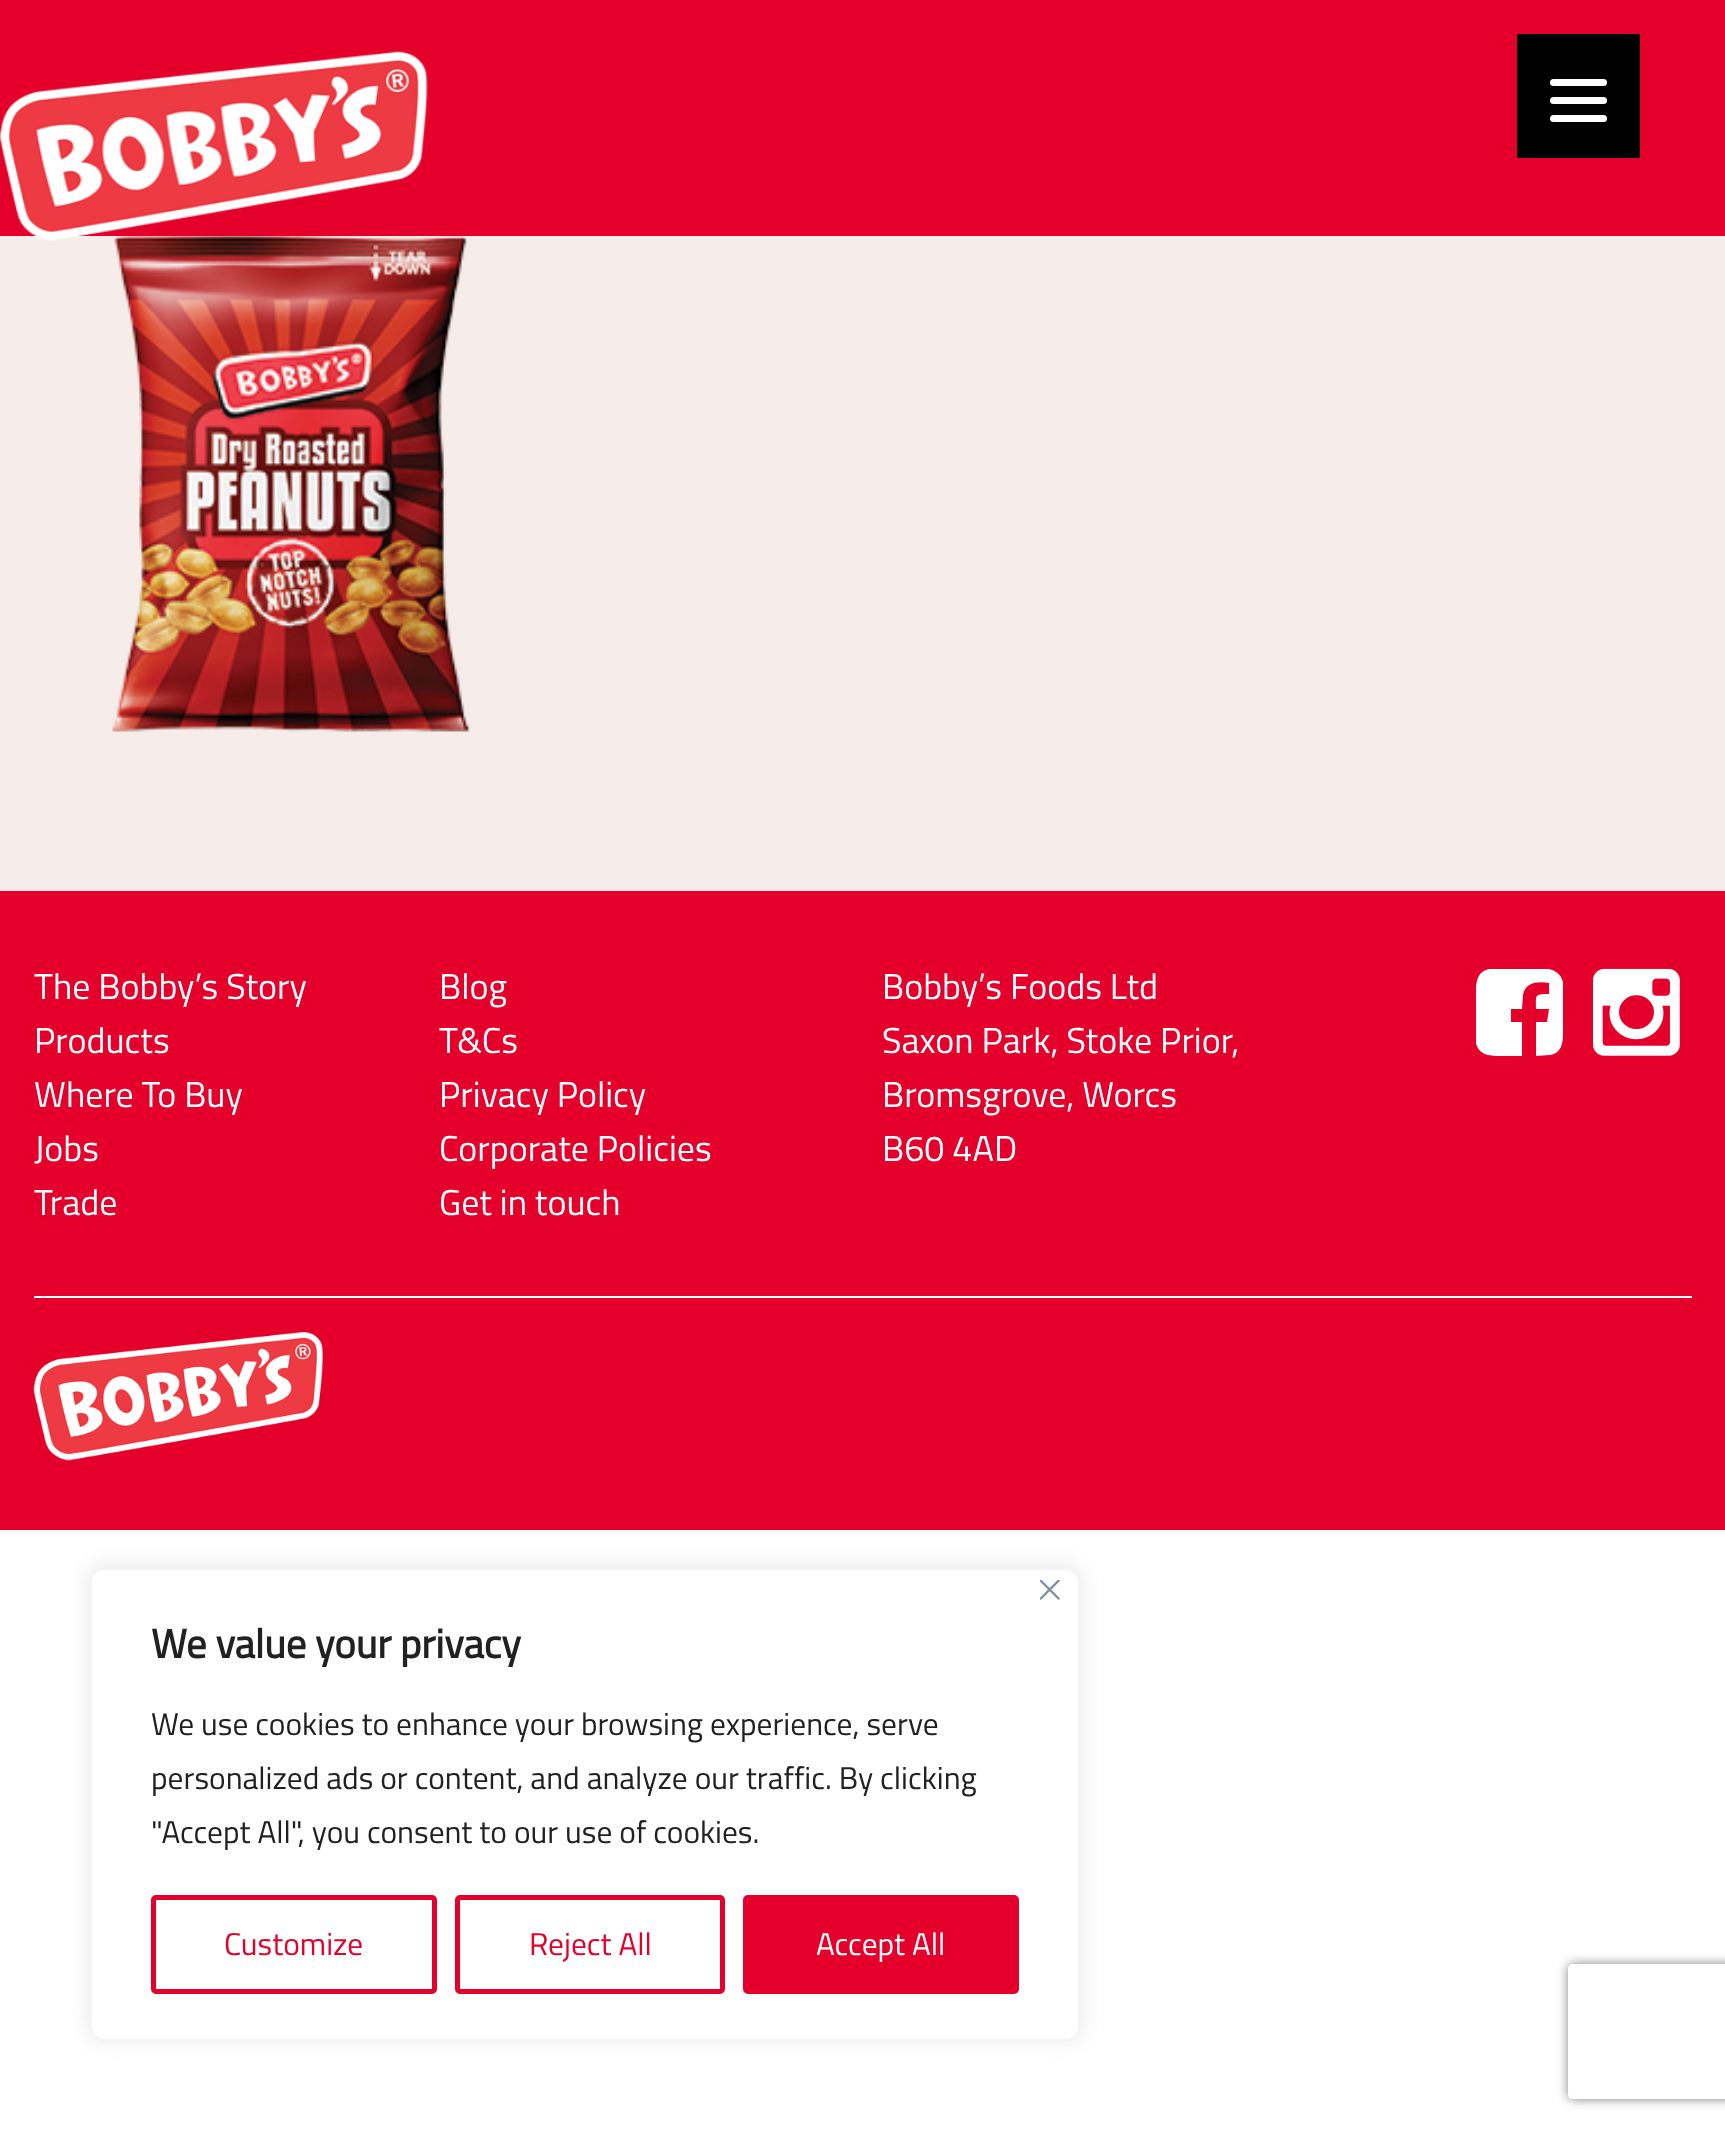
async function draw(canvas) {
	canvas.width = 1725;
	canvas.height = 2130;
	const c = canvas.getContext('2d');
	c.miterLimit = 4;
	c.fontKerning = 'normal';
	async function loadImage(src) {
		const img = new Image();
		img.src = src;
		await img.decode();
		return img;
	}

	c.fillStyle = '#fff';
	c.fillRect(0, 0, 1725, 2130);
	c.fillStyle = '#e4002b';
	c.fillRect(0, 0, 1725, 236);
	c.fillStyle = '#000';
	c.fillRect(1517, 34, 123, 124);
	c.fillStyle = '#fff';
	c.beginPath();
	c.roundRect(1550, 97, 57, 7, 3.5);
	c.fill();
	c.beginPath();
	c.roundRect(1550, 79, 57, 7, 3.5);
	c.fill();
	c.beginPath();
	c.roundRect(1550, 115, 57, 7, 3.5);
	c.fill();
	c.fillStyle = '#f6ecea';
	c.fillRect(0, 236, 1725, 655);
	c.drawImage(await loadImage('img2.png'), 112, 236, 359, 496);
	c.drawImage(await loadImage('img1.png'), 0, 51, 429, 190);
	c.fillStyle = '#e4002b';
	c.fillRect(0, 891, 1725, 639);
	c.font = '36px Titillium';
	c.fillStyle = '#fff';
	for (const [text, x, y] of [
		['The Bobby’s Story', 34, 999],
		['Products', 34, 1053],
		['Where To Buy', 34, 1107],
		['Jobs', 34, 1161],
		['Trade', 34, 1215],
		['Blog', 439, 999],
		['T&Cs', 439, 1053],
		['Privacy Policy', 439, 1107],
		['Corporate Policies', 439, 1161],
		['Get in touch', 439, 1215],
		['Bobby’s Foods Ltd', 882, 999],
		['Saxon Park, Stoke Prior,', 882, 1053],
		['Bromsgrove, Worcs', 882, 1107],
		['B60 4AD', 882, 1161],
	]) {
		c.fillText(text, x, y);
	}
	c.beginPath();
	c.moveTo(1547, 969);
	c.bezierCurveTo(1554, 969, 1561, 974, 1563, 982);
	c.lineTo(1563, 1030);
	c.bezierCurveTo(1563, 1041, 1563, 1053, 1550, 1055);
	c.lineTo(1536, 1056);
	c.lineTo(1536, 1022);
	c.lineTo(1547, 1022);
	c.lineTo(1549, 1009);
	c.lineTo(1536, 1009);
	c.bezierCurveTo(1536, 995, 1534, 994, 1549, 994);
	c.lineTo(1549, 983);
	c.bezierCurveTo(1538, 981, 1525, 982, 1523, 995);
	c.lineTo(1522, 1009);
	c.lineTo(1511, 1009);
	c.lineTo(1511, 1022);
	c.lineTo(1522, 1022);
	c.lineTo(1522, 1056);
	c.lineTo(1502, 1056);
	c.bezierCurveTo(1491, 1056, 1479, 1056, 1476, 1043);
	c.lineTo(1476, 994);
	c.bezierCurveTo(1476, 984, 1476, 972, 1489, 969);
	c.closePath();
	c.fill();
	c.drawImage(await loadImage('img3.png'), 1593, 968, 87, 88);
	c.fillRect(34, 1296, 1658, 2);
	c.drawImage(await loadImage('img4.png'), 33, 1332, 290, 129);
	c.fillStyle = '#acabab4d';
	c.filter = 'blur(11px)';
	c.beginPath();
	c.roundRect(90, 1566, 990, 473, 14);
	c.fill();
	c.filter = 'none';
	c.fillStyle = '#fff';
	c.beginPath();
	c.roundRect(91, 1569, 988, 471, 13);
	c.fill();
	c.strokeStyle = '#f4f4f4';
	c.lineWidth = 2;
	c.stroke();
	c.drawImage(await loadImage('img5.png'), 1040, 1580, 20, 20);
	c.font = 'bold 40.5px Titillium';
	c.fillStyle = '#212121';
	c.fillText('We value your privacy', 151, 1658);
	c.font = '31.5px Titillium';
	for (const [text, x, y] of [
		['We use cookies to enhance your browsing experience, serve', 151, 1735],
		['personalized ads or content, and analyze our traffic. By clicking', 151, 1789],
		['"Accept All", you consent to our use of cookies.', 151, 1843],
	]) {
		c.fillText(text, x, y);
	}
	c.beginPath();
	c.roundRect(153.5, 1897.5, 281, 94, 2.5);
	c.strokeStyle = '#e4002b';
	c.lineWidth = 5;
	c.stroke();
	c.fillStyle = '#e4002b';
	c.fillText('Customize', 224, 1955);
	c.beginPath();
	c.roundRect(457.5, 1897.5, 265, 94, 2.5);
	c.stroke();
	c.fillText('Reject All', 529, 1955);
	c.beginPath();
	c.roundRect(745.5, 1897.5, 271, 94, 2.5);
	c.fill();
	c.stroke();
	c.fillStyle = '#fff';
	c.fillText('Accept All', 816, 1955);
	c.save();
	c.beginPath();
	c.moveTo(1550, 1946);
	c.lineTo(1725, 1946);
	c.lineTo(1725, 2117);
	c.lineTo(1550, 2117);
	c.closePath();
	c.moveTo(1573, 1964);
	c.lineTo(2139, 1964);
	c.bezierCurveTo(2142, 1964, 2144, 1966, 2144, 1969);
	c.lineTo(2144, 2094);
	c.bezierCurveTo(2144, 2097, 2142, 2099, 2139, 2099);
	c.lineTo(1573, 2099);
	c.bezierCurveTo(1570, 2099, 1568, 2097, 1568, 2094);
	c.lineTo(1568, 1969);
	c.bezierCurveTo(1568, 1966, 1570, 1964, 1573, 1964);
	c.closePath();
	c.clip('evenodd');
	c.fillStyle = '#808080';
	c.filter = 'blur(5.5px)';
	c.beginPath();
	c.roundRect(1568, 1964, 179, 135, 5);
	c.fill();
	c.filter = 'none';
	c.restore();
}

draw(document.querySelector('canvas'));
